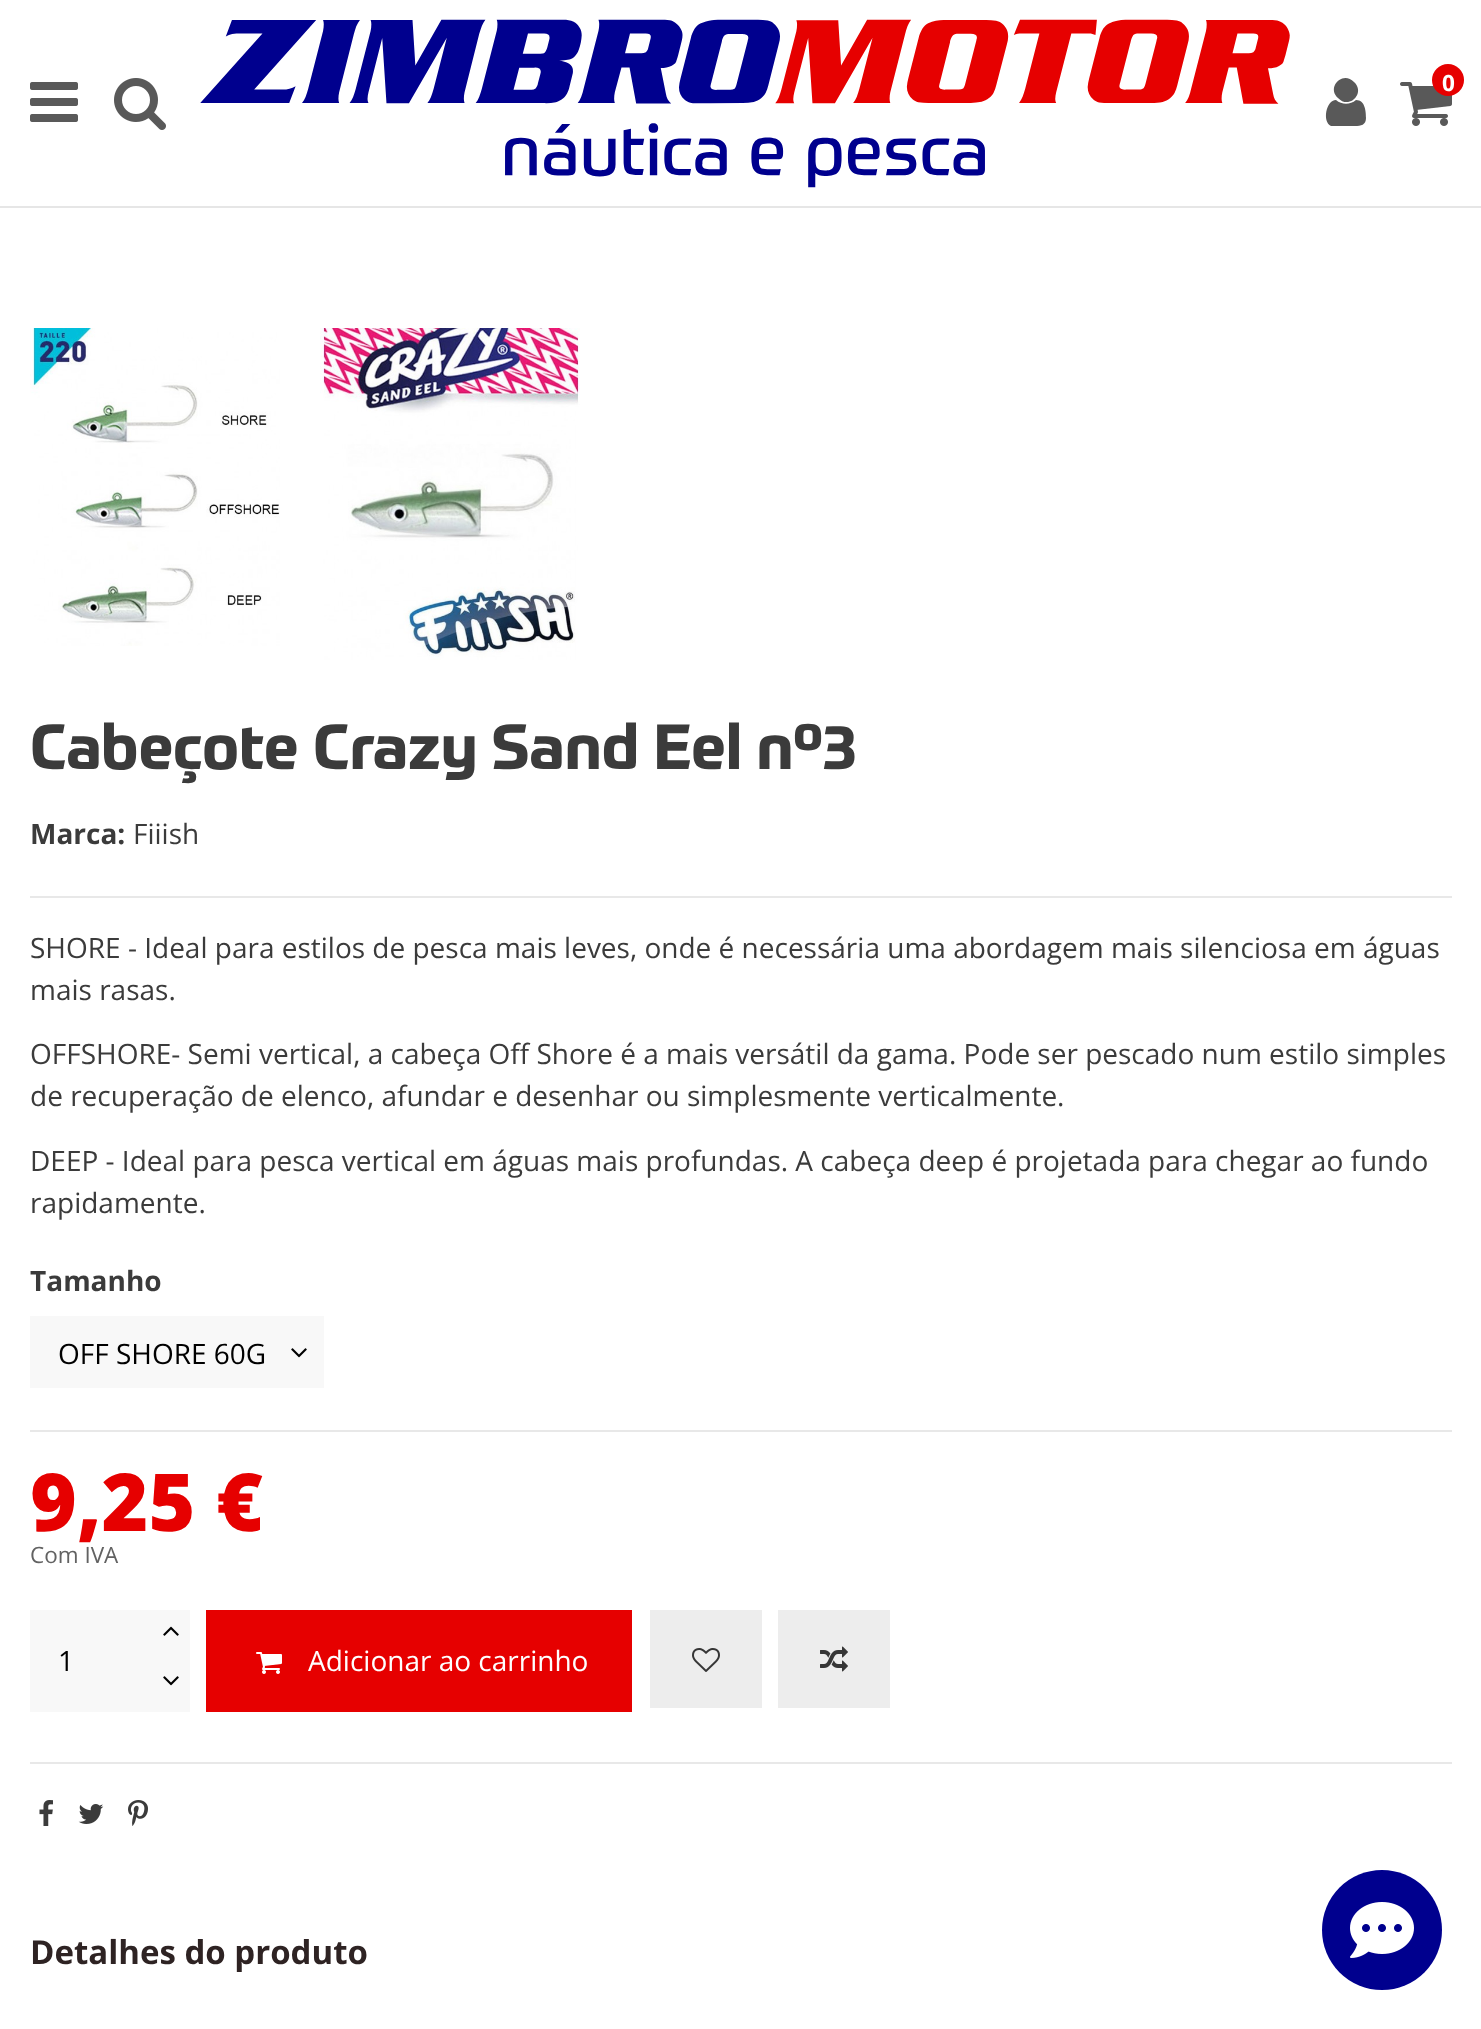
async function draw(canvas) {
	canvas.width = 1481;
	canvas.height = 2029;
	const c = canvas.getContext('2d');
	c.miterLimit = 4;
	c.fontKerning = 'normal';
	async function loadImage(src) {
		const img = new Image();
		img.src = src;
		await img.decode();
		return img;
	}

	c.fillStyle = '#fff';
	c.fillRect(0, 0, 1481, 2029);
	c.fillStyle = '#e6e6e6';
	c.fillRect(0, 206, 1481, 2);
	c.drawImage(await loadImage('img1.png'), 30, 82, 48, 40);
	c.drawImage(await loadImage('img2.png'), 114, 78, 52, 52);
	c.drawImage(await loadImage('img3.png'), 200, 19, 1090, 169);
	c.fillStyle = '#595959';
	c.beginPath();
	c.moveTo(1366, 118);
	c.bezierCurveTo(1366, 125, 1361, 126, 1355, 126);
	c.lineTo(1331, 126);
	c.bezierCurveTo(1322, 122, 1326, 100, 1336, 100);
	c.bezierCurveTo(1342, 105, 1350, 105, 1356, 100);
	c.bezierCurveTo(1365, 100, 1366, 111, 1366, 118);
	c.closePath();
	c.moveTo(1354, 82);
	c.bezierCurveTo(1366, 93, 1349, 110, 1338, 98);
	c.bezierCurveTo(1326, 87, 1343, 70, 1354, 82);
	c.closePath();
	c.fill();
	c.drawImage(await loadImage('img4.png'), 1400, 82, 52, 44);
	c.fillStyle = '#e60000';
	c.beginPath();
	c.arc(1448, 80, 16, 0, 2 * Math.PI);
	c.fill();
	c.font = 'bold 22.5px Open Sans';
	c.fillStyle = '#fff';
	c.fillText('0', 1442, 91);
	c.drawImage(await loadImage('img5.png'), 30, 328, 250, 318);
	c.drawImage(await loadImage('img6.png'), 320, 328, 260, 332);
	c.fillStyle = '#e8e8e8';
	c.fillRect(30, 896, 1422, 2);
	c.font = 'bold 62.6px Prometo';
	c.fillStyle = '#3b3b3b';
	c.fillText('Cabeçote Crazy Sand Eel nº3', 30, 769);
	c.font = 'bold 28px Open Sans';
	c.fillText('Marca:', 30, 844);
	c.font = '28px Open Sans';
	for (const [text, x, y] of [
		['Fiiish', 133, 844],
		['SHORE - Ideal para estilos de pesca mais leves, onde é necessária uma abordagem mais silenciosa em águas', 30, 958],
		['mais rasas.', 30, 1000],
		['OFFSHORE- Semi vertical, a cabeça Off Shore é a mais versátil da gama. Pode ser pescado num estilo simples', 30, 1064],
		['de recuperação de elenco, afundar e desenhar ou simplesmente verticalmente.', 30, 1106],
		['DEEP - Ideal para pesca vertical em águas mais profundas. A cabeça deep é projetada para chegar ao fundo', 30, 1171],
		['rapidamente.', 30, 1213],
	]) {
		c.fillText(text, x, y);
	}
	c.font = 'bold 28px Open Sans';
	c.fillText('Tamanho', 30, 1291);
	c.fillStyle = '#f8f8f8';
	c.fillRect(30, 1316, 294, 72);
	c.font = '28px Open Sans';
	c.fillStyle = '#000';
	c.fillText('OFF SHORE 60G', 58, 1364);
	c.drawImage(await loadImage('img7.png'), 291, 1348, 16, 10);
	c.fillStyle = '#e8e8e8';
	c.fillRect(30, 1430, 1422, 2);
	c.font = '800 80px Open Sans';
	c.fillStyle = '#e60000';
	c.fillText('9,25 €', 30, 1531);
	c.font = '22.5px Open Sans';
	c.fillStyle = '#626262';
	c.fillText('Com IVA', 30, 1563);
	c.fillStyle = '#f8f8f8';
	c.fillRect(30, 1610, 120, 102);
	c.font = '28px Open Sans';
	c.fillStyle = '#000';
	c.fillText('1', 58, 1671);
	c.fillStyle = '#f8f8f8';
	c.fillRect(150, 1610, 40, 102);
	c.drawImage(await loadImage('img8.png'), 163, 1626, 16, 10);
	c.drawImage(await loadImage('img7.png'), 163, 1676, 16, 10);
	c.fillStyle = '#e60000';
	c.fillRect(206, 1610, 426, 102);
	c.drawImage(await loadImage('img9.png'), 256, 1652, 26, 22);
	c.fillStyle = '#fff';
	c.fillText('Adicionar ao carrinho', 308, 1671);
	c.fillStyle = '#ededed';
	c.fillRect(650, 1610, 112, 98);
	c.drawImage(await loadImage('img10.png'), 692, 1648, 28, 24);
	c.fillRect(778, 1610, 112, 98);
	c.drawImage(await loadImage('img11.png'), 820, 1646, 28, 26);
	c.fillStyle = '#e8e8e8';
	c.fillRect(30, 1762, 1422, 2);
	c.drawImage(await loadImage('img12.png'), 39, 1800, 14, 26);
	c.drawImage(await loadImage('img13.png'), 78, 1804, 26, 20);
	c.drawImage(await loadImage('img14.png'), 128, 1800, 20, 26);
	c.font = 'bold 33px Open Sans';
	c.fillStyle = '#2e2323';
	c.fillText('Detalhes do produto', 30, 1964);
	c.fillStyle = '#00008e';
	c.beginPath();
	c.arc(1382, 1930, 60, 0, 2 * Math.PI);
	c.fill();
	c.drawImage(await loadImage('img15.png'), 1350, 1902, 64, 56);
}

draw(document.querySelector('canvas'));
